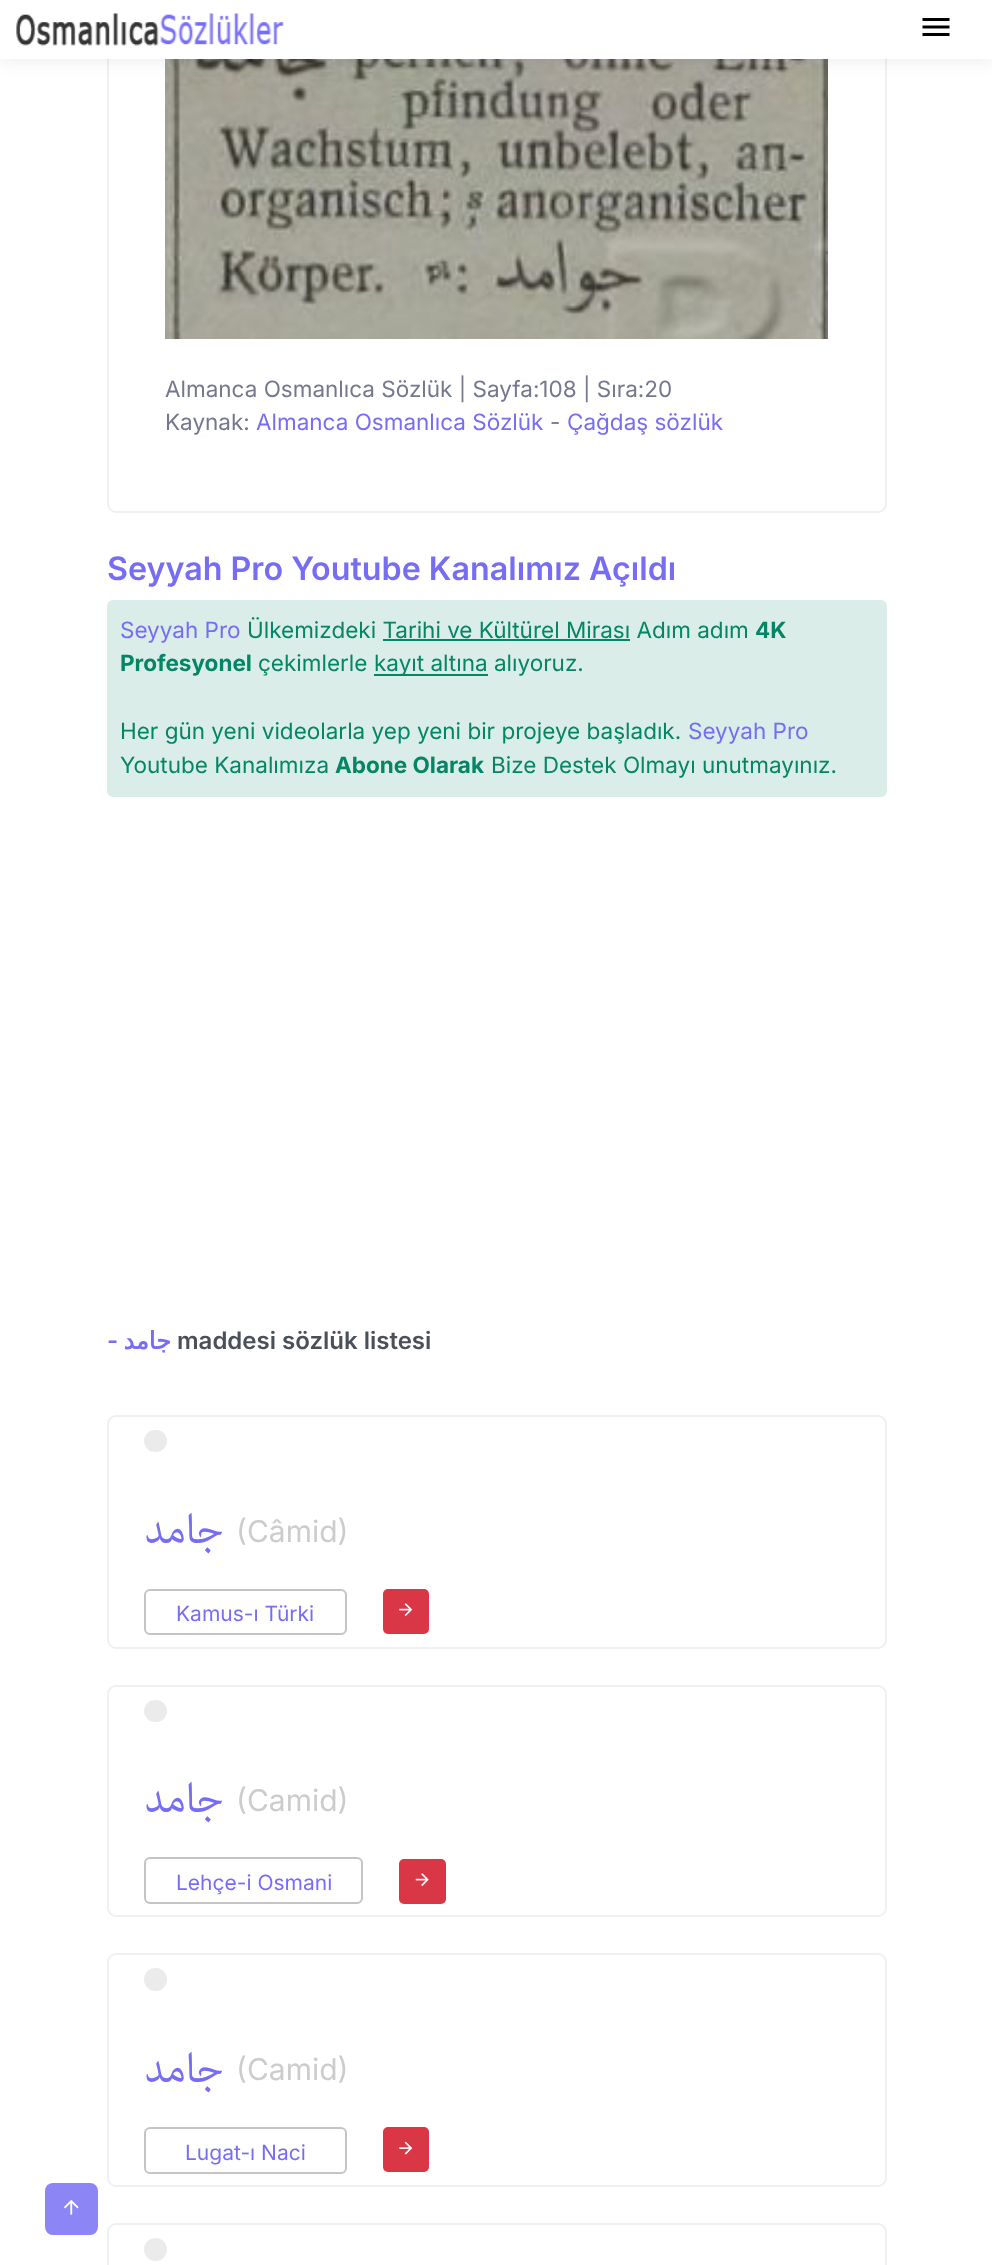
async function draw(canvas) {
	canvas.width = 992;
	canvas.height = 2265;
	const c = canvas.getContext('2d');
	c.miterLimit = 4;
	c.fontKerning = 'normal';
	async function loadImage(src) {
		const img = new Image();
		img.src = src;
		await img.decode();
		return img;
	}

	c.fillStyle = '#fff';
	c.fillRect(0, 0, 992, 2265);
	c.beginPath();
	c.roundRect(108, -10, 778, 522, 8);
	c.strokeStyle = '#eff0f2';
	c.lineWidth = 2;
	c.stroke();
	c.drawImage(await loadImage('img3.png'), 165, 59, 663, 280);
	c.fillStyle = '#31404714';
	c.filter = 'blur(7.5px)';
	c.beginPath();
	c.rect(0, 5, 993, 58);
	c.fill();
	c.filter = 'none';
	c.fillStyle = '#fff';
	c.fillRect(0, 0, 992, 59);
	c.drawImage(await loadImage('img1.png'), 15, 13, 269, 33);
	c.drawImage(await loadImage('img2.png'), 922, 18, 28, 18);
	c.font = '22.5px Inter';
	c.fillStyle = '#74788d';
	c.fillText('Almanca Osmanlıca Sözlük | Sayfa:108 | Sıra:20', 165, 397);
	c.fillText('Kaynak:', 165, 430);
	c.fillStyle = '#766df4';
	c.fillText('Almanca Osmanlıca Sözlük', 256, 430);
	c.fillStyle = '#74788d';
	c.fillText('-', 550, 430);
	c.fillStyle = '#766df4';
	c.fillText('Çağdaş sözlük', 567, 430);
	c.font = '600 32.25px Inter';
	c.fillText('Seyyah Pro Youtube Kanalımız Açıldı', 107, 580);
	c.fillStyle = '#daede8';
	c.beginPath();
	c.roundRect(107, 600, 780, 197, 6);
	c.fill();
	c.font = '22.5px Inter';
	c.fillStyle = '#766df4';
	c.fillText('Seyyah Pro', 120, 638);
	c.fillStyle = '#048565';
	c.fillText('Ülkemizdeki Tarihi ve Kültürel Mirası Adım adım', 247, 638);
	c.font = 'bold 22.5px Inter';
	c.fillText('4K', 755, 638);
	c.fillRect(383, 639, 247, 2);
	c.fillText('Profesyonel', 120, 671);
	c.font = '22.5px Inter';
	c.fillText('çekimlerle', 258, 671);
	c.fillRect(374, 674, 114, 2);
	c.fillText('kayıt altına alıyoruz.', 374, 671);
	c.fillText('Her gün yeni videolarla yep yeni bir projeye başladık.', 120, 739);
	c.fillStyle = '#766df4';
	c.fillText('Seyyah Pro', 688, 739);
	c.fillStyle = '#048565';
	c.fillText('Youtube Kanalımıza', 120, 773);
	c.font = 'bold 22.5px Inter';
	c.fillText('Abone Olarak', 335, 773);
	c.font = '22.5px Inter';
	c.fillText('Bize Destek Olmayı unutmayınız.', 491, 773);
	c.font = '600 24px Inter';
	c.fillStyle = '#766df4';
	c.fillText('-', 107, 1349);
	c.direction = 'rtl';
	c.font = 'bold 24px DejaVu Sans';
	c.fillText('جامد', 171, 1349);
	c.direction = 'ltr';
	c.font = '600 24px Inter';
	c.fillStyle = '#495057';
	c.fillText('maddesi sözlük listesi', 177, 1349);
	c.beginPath();
	c.roundRect(108, 1416, 778, 232, 8);
	c.stroke();
	c.fillStyle = '#ebebeb';
	c.beginPath();
	c.roundRect(144, 1430, 23, 22, 11);
	c.fill();
	c.direction = 'rtl';
	c.font = '60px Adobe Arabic';
	c.fillStyle = '#766df4';
	c.fillText('جامد', 224, 1543);
	c.direction = 'ltr';
	c.font = '30px Inter';
	c.fillStyle = '#ccc';
	c.fillText('(Câmid)', 236, 1542);
	c.beginPath();
	c.roundRect(145, 1590, 201, 44, 5);
	c.strokeStyle = '#c4c4c4';
	c.stroke();
	c.font = '21px Inter';
	c.fillStyle = '#766df4';
	c.fillText('Kamus-ı Türki', 176, 1621);
	c.fillStyle = '#da3746';
	c.beginPath();
	c.roundRect(384, 1590, 44, 43, 4);
	c.fill();
	c.strokeStyle = '#da3746';
	c.stroke();
	c.drawImage(await loadImage('img4.png'), 399, 1603, 14, 13);
	c.beginPath();
	c.roundRect(108, 1686, 778, 230, 8);
	c.strokeStyle = '#eff0f2';
	c.stroke();
	c.fillStyle = '#ebebeb';
	c.beginPath();
	c.roundRect(144, 1700, 23, 22, 11);
	c.fill();
	c.direction = 'rtl';
	c.font = '60px Adobe Arabic';
	c.fillStyle = '#766df4';
	c.fillText('جامد', 224, 1812);
	c.direction = 'ltr';
	c.font = '30px Inter';
	c.fillStyle = '#ccc';
	c.fillText('(Camid)', 236, 1811);
	c.beginPath();
	c.roundRect(145, 1858, 217, 45, 5);
	c.strokeStyle = '#c4c4c4';
	c.stroke();
	c.font = '21px Inter';
	c.fillStyle = '#766df4';
	c.fillText('Lehçe-i Osmani', 176, 1890);
	c.fillStyle = '#da3746';
	c.beginPath();
	c.roundRect(400, 1860, 45, 43, 4);
	c.fill();
	c.strokeStyle = '#da3746';
	c.stroke();
	c.drawImage(await loadImage('img5.png'), 415, 1873, 14, 13);
	c.beginPath();
	c.roundRect(108, 1954, 778, 232, 8);
	c.strokeStyle = '#eff0f2';
	c.stroke();
	c.fillStyle = '#ebebeb';
	c.beginPath();
	c.arc(155.5, 1979.5, 11.5, 0, 2 * Math.PI);
	c.fill();
	c.direction = 'rtl';
	c.font = '60px Adobe Arabic';
	c.fillStyle = '#766df4';
	c.fillText('جامد', 224, 2082);
	c.direction = 'ltr';
	c.font = '30px Inter';
	c.fillStyle = '#ccc';
	c.fillText('(Camid)', 236, 2080);
	c.beginPath();
	c.roundRect(145, 2128, 201, 45, 5);
	c.strokeStyle = '#c4c4c4';
	c.stroke();
	c.font = '21px Inter';
	c.fillStyle = '#766df4';
	c.fillText('Lugat-ı Naci', 185, 2160);
	c.fillStyle = '#da3746';
	c.beginPath();
	c.roundRect(384, 2128, 44, 43, 4);
	c.fill();
	c.strokeStyle = '#da3746';
	c.stroke();
	c.drawImage(await loadImage('img6.png'), 399, 2141, 14, 14);
	c.beginPath();
	c.roundRect(108, 2224, 778, 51, 8);
	c.strokeStyle = '#eff0f2';
	c.stroke();
	c.fillStyle = '#ebebeb';
	c.beginPath();
	c.arc(155.5, 2249.5, 11.5, 0, 2 * Math.PI);
	c.fill();
	c.fillStyle = '#8c85f6';
	c.beginPath();
	c.roundRect(45, 2183, 53, 52, 8);
	c.fill();
	c.drawImage(await loadImage('img7.png'), 64, 2199, 15, 16);
}

draw(document.querySelector('canvas'));
